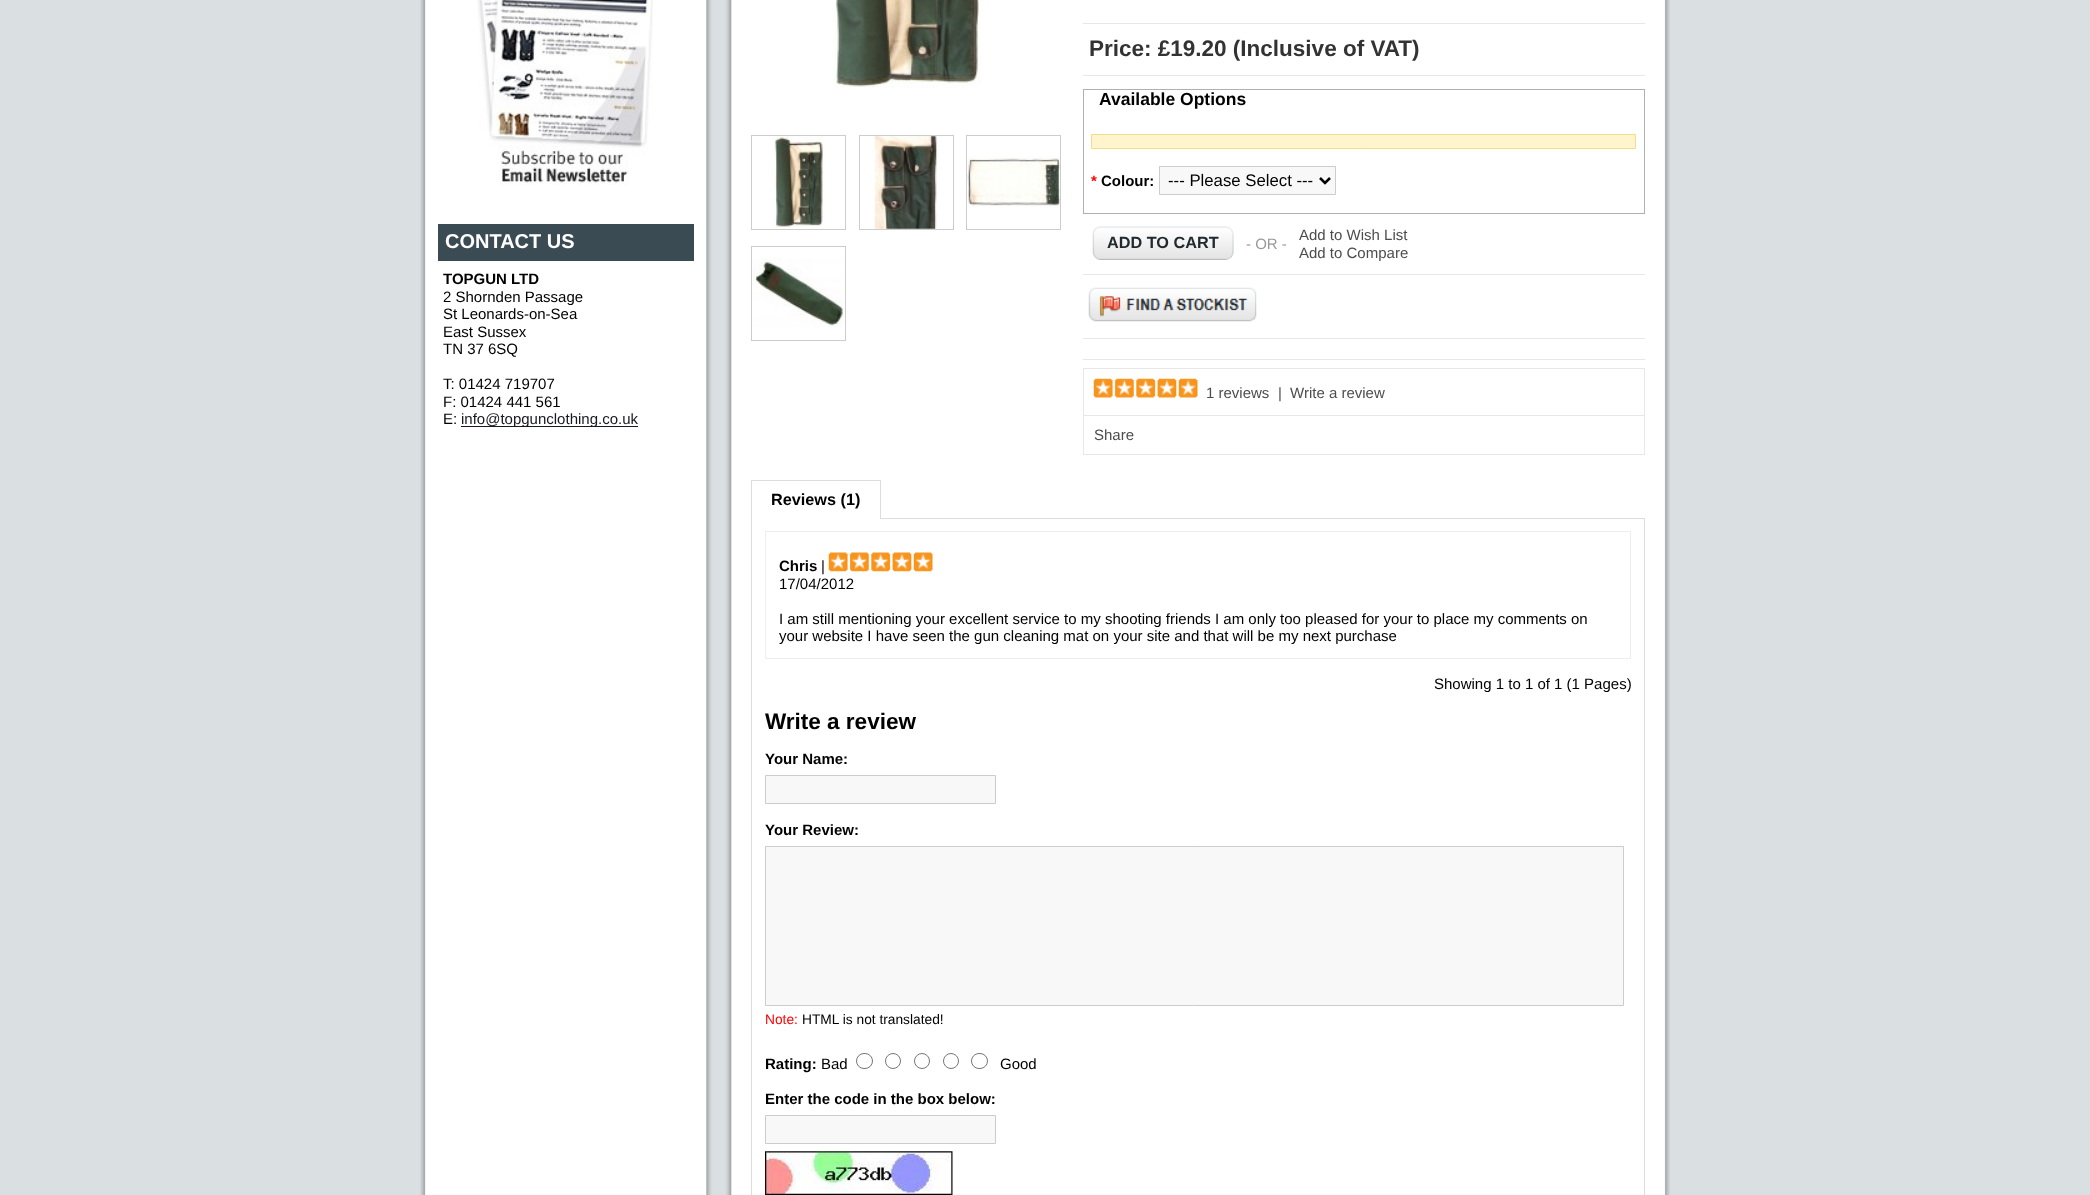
async function draw(canvas) {
	canvas.width = 2090;
	canvas.height = 1195;
	const c = canvas.getContext('2d');
	c.miterLimit = 4;
	c.fontKerning = 'normal';
	async function loadImage(src) {
		const img = new Image();
		img.src = src;
		await img.decode();
		return img;
	}

	c.fillStyle = '#dadfe2';
	c.fillRect(0, 0, 2090, 1195);
	c.drawImage(await loadImage('img1.png'), 420, 0, 1250, 1195);
	c.drawImage(await loadImage('img2.png'), 477, 0, 176, 185);
	c.fillStyle = '#3b4b53';
	c.fillRect(438, 224, 256, 37);
	c.font = 'bold 20px Liberation Sans';
	c.fillStyle = '#fff';
	c.fillText('CONTACT US', 445, 248);
	c.font = 'bold 15px Liberation Sans';
	c.fillStyle = '#000';
	c.fillText('TOPGUN LTD', 443, 284);
	c.font = '15px Liberation Sans';
	for (const [text, x, y] of [
		['2 Shornden Passage', 443, 302],
		['St Leonards-on-Sea', 443, 319],
		['East Sussex', 443, 337],
		['TN 37 6SQ', 443, 354],
		['T: 01424 719707', 443, 389],
		['F: 01424 441 561', 443, 407],
		['E:', 443, 424],
	]) {
		c.fillText(text, x, y);
	}
	c.fillStyle = '#17191e';
	c.fillRect(461, 426, 177, 1);
	c.fillText('info@topgunclothing.co.uk', 461, 424);
	c.drawImage(await loadImage('img3.png'), 833, 0, 148, 89);
	c.strokeStyle = '#ccc';
	c.strokeRect(751.5, 135.5, 94, 94);
	c.drawImage(await loadImage('img4.png'), 772, 136, 53, 92);
	c.strokeRect(859.5, 135.5, 94, 94);
	c.drawImage(await loadImage('img5.png'), 873, 136, 67, 93);
	c.strokeRect(966.5, 135.5, 94, 94);
	c.drawImage(await loadImage('img6.png'), 967, 156, 93, 51);
	c.strokeRect(751.5, 246.5, 94, 94);
	c.drawImage(await loadImage('img7.png'), 752, 258, 93, 69);
	c.fillStyle = '#e7e7e7';
	c.fillRect(1083, 23, 562, 1);
	c.fillRect(1083, 75, 562, 1);
	c.font = 'bold 22.5px Liberation Sans';
	c.fillStyle = '#333';
	c.fillText('Price: £19.20 (Inclusive of VAT)', 1089, 56);
	c.strokeStyle = '#b0b0b0';
	c.strokeRect(1083.5, 89.5, 561, 124);
	c.font = 'bold 17.5px Liberation Sans';
	c.fillStyle = '#000';
	c.fillText('Available Options', 1099, 105);
	c.fillStyle = '#fff5cc';
	c.beginPath();
	c.rect(1091.5, 134.5, 544, 14);
	c.fill();
	c.strokeStyle = '#f2dd8c';
	c.stroke();
	c.font = 'bold 15px Liberation Sans';
	c.fillStyle = '#f00';
	c.fillText('*', 1091, 186);
	c.fillStyle = '#000';
	c.fillText('Colour:', 1101, 186);
	c.fillStyle = '#f8f8f8';
	c.beginPath();
	c.rect(1159.5, 166.5, 176, 28);
	c.fill();
	c.strokeStyle = '#ccc';
	c.stroke();
	c.beginPath();
	c.moveTo(1320, 178);
	c.lineTo(1325, 183);
	c.lineTo(1330, 178);
	c.strokeStyle = '#000';
	c.lineWidth = 2.5;
	c.stroke();
	c.font = '16.75px Liberation Sans';
	c.fillStyle = '#000';
	c.fillText('--- Please Select ---', 1168, 186);
	c.fillStyle = '#e7e7e7';
	c.fillRect(1083, 274, 562, 1);
	c.drawImage(await loadImage('img8.png'), 1092, 226, 8, 34);
	c.drawImage(await loadImage('img9.png'), 1100, 226, 134, 34);
	c.font = 'bold 16.25px Liberation Sans';
	c.fillStyle = '#212a2e';
	c.fillText('ADD TO CART', 1107, 248);
	c.font = '15px Liberation Sans';
	c.fillStyle = '#999';
	c.fillText('- OR -', 1246, 249);
	c.fillStyle = '#4d4d4d';
	c.fillText('Add to Wish List', 1299, 240);
	c.fillText('Add to Compare', 1299, 258);
	c.fillStyle = '#e7e7e7';
	c.fillRect(1083, 338, 562, 1);
	c.drawImage(await loadImage('img10.png'), 1088, 287, 169, 35);
	for (const [x, y, w, h, color] of [
		[1083, 359, 562, 1, '#e7e7e7'],
		[1083, 368, 562, 1, '#e7e7e7'],
		[1644, 368, 1, 87, '#e7e7e7'],
		[1083, 368, 1, 87, '#e7e7e7'],
		[1084, 415, 560, 1, '#e7e7e7'],
	]) {
		c.fillStyle = color;
		c.fillRect(x, y, w, h);
	}
	c.drawImage(await loadImage('img11.png'), 1093, 378, 105, 20);
	c.fillStyle = '#4d4d4d';
	for (const [text, x, y] of [
		['1 reviews', 1206, 398],
		['|', 1278, 398],
		['Write a review', 1290, 398],
	]) {
		c.fillText(text, x, y);
	}
	c.fillStyle = '#e7e7e7';
	c.fillRect(1084, 454, 560, 1);
	c.fillStyle = '#4d4d4d';
	c.fillText('Share', 1094, 440);
	for (const [x, y, w, h, color] of [
		[881, 518, 764, 1, '#ddd'],
		[751, 480, 130, 1, '#ddd'],
		[880, 480, 1, 39, '#ddd'],
		[751, 480, 1, 715, '#ddd'],
	]) {
		c.fillStyle = color;
		c.fillRect(x, y, w, h);
	}
	c.font = 'bold 16.25px Liberation Sans';
	c.fillStyle = '#000';
	c.fillText('Reviews (1)', 771, 505);
	c.fillStyle = '#ddd';
	c.fillRect(1644, 519, 1, 676);
	c.strokeStyle = '#eee';
	c.lineWidth = 1;
	c.strokeRect(765.5, 531.5, 865, 127);
	c.font = 'bold 15px Liberation Sans';
	c.fillStyle = '#000';
	c.fillText('Chris', 779, 571);
	c.font = '15px Liberation Sans';
	c.fillText('|', 821, 571);
	c.drawImage(await loadImage('img12.png'), 828, 552, 105, 20);
	for (const [text, x, y] of [
		['17/04/2012', 779, 589],
		['I am still mentioning your excellent service to my shooting friends I am only too pleased for your to place my comments on', 779, 624],
		['your website I have seen the gun cleaning mat on your site and that will be my next purchase', 779, 641],
		['Showing 1 to 1 of 1 (1 Pages)', 1434, 689],
	]) {
		c.fillText(text, x, y);
	}
	c.font = 'bold 22.5px Liberation Sans';
	c.fillText('Write a review', 765, 729);
	c.font = 'bold 15px Liberation Sans';
	c.fillText('Your Name:', 765, 764);
	c.fillStyle = '#f8f8f8';
	c.beginPath();
	c.rect(765.5, 775.5, 230, 28);
	c.fill();
	c.strokeStyle = '#ccc';
	c.stroke();
	c.fillStyle = '#000';
	c.fillText('Your Review:', 765, 835);
	c.fillStyle = '#f8f8f8';
	c.beginPath();
	c.rect(765.5, 846.5, 858, 159);
	c.fill();
	c.stroke();
	c.font = '13.75px Liberation Sans';
	c.fillStyle = '#f00';
	c.fillText('Note:', 765, 1024);
	c.fillStyle = '#000';
	c.fillText('HTML is not translated!', 802, 1024);
	c.font = 'bold 15px Liberation Sans';
	c.fillText('Rating:', 765, 1069);
	c.font = '15px Liberation Sans';
	c.fillText('Bad', 821, 1069);
	c.beginPath();
	c.roundRect(856.5, 1053.5, 16, 15, 7.5);
	c.strokeStyle = '#767676';
	c.stroke();
	c.beginPath();
	c.arc(893, 1061, 7.5, 0, 2 * Math.PI);
	c.stroke();
	c.beginPath();
	c.arc(922, 1061, 7.5, 0, 2 * Math.PI);
	c.stroke();
	c.beginPath();
	c.arc(951, 1061, 7.5, 0, 2 * Math.PI);
	c.stroke();
	c.beginPath();
	c.roundRect(971.5, 1053.5, 16, 15, 7.5);
	c.stroke();
	c.fillText('Good', 1000, 1069);
	c.font = 'bold 15px Liberation Sans';
	c.fillText('Enter the code in the box below:', 765, 1104);
	c.fillStyle = '#f8f8f8';
	c.beginPath();
	c.rect(765.5, 1115.5, 230, 28);
	c.fill();
	c.strokeStyle = '#ccc';
	c.stroke();
	c.drawImage(await loadImage('img13.png'), 765, 1151, 188, 44);
}

draw(document.querySelector('canvas'));
